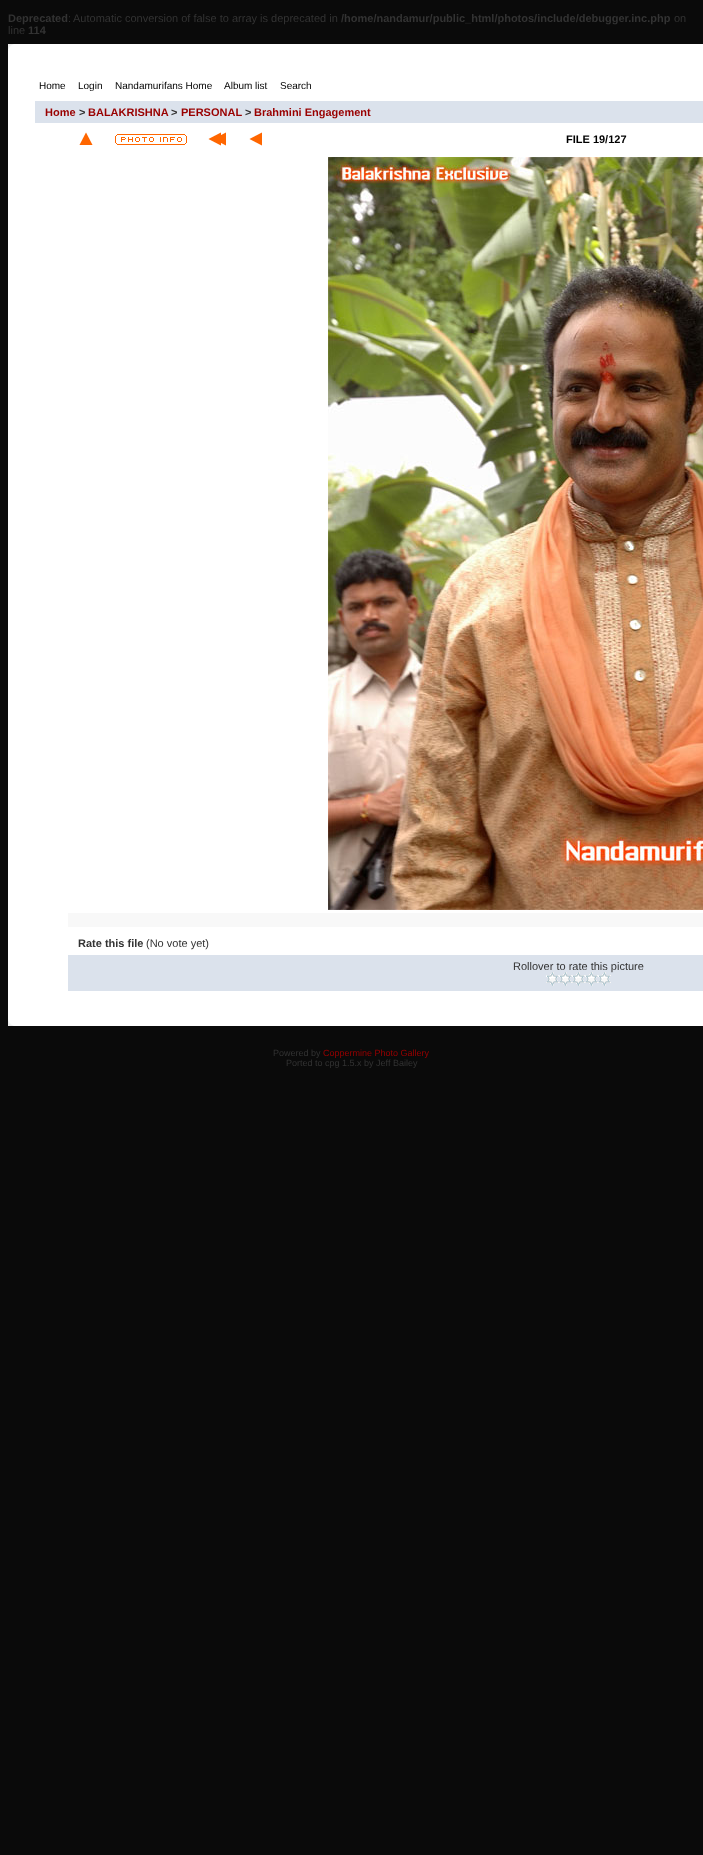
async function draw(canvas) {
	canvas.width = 703;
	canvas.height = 1855;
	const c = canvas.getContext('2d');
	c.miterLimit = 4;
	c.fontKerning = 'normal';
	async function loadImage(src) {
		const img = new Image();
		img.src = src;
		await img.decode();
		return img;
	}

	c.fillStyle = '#0a0a0a';
	c.fillRect(0, 0, 703, 1855);
	c.font = 'bold 11px Liberation Sans';
	c.fillStyle = '#333';
	c.fillText('Deprecated', 8, 22);
	c.font = '11px Liberation Sans';
	c.fillText(':', 68, 22);
	c.fillText('Automatic conversion of false to array is deprecated in', 73, 22);
	c.font = 'bold 11px Liberation Sans';
	c.fillText('/home/nandamur/public_html/photos/include/debugger.inc.php', 341, 22);
	c.font = '11px Liberation Sans';
	c.fillText('on', 674, 22);
	c.fillText('line', 8, 34);
	c.font = 'bold 11px Liberation Sans';
	c.fillText('114', 28, 34);
	c.fillStyle = '#fff';
	c.fillRect(8, 44, 695, 975);
	c.drawImage(await loadImage('img1.png'), 8, 44, 6, 7);
	c.font = '10px Liberation Sans';
	c.fillStyle = '#000';
	for (const [text, x, y] of [
		['Home', 39, 89],
		['Login', 78, 89],
		['Nandamurifans Home', 115, 89],
		['Album list', 224, 89],
		['Search', 280, 89],
	]) {
		c.fillText(text, x, y);
	}
	c.fillStyle = '#dbe2ec';
	c.fillRect(35, 101, 668, 22);
	c.font = 'bold 11px Liberation Sans';
	c.fillStyle = '#900';
	c.fillText('Home', 45, 116);
	c.fillStyle = '#333';
	c.fillText('>', 79, 116);
	c.fillStyle = '#900';
	c.fillText('BALAKRISHNA', 88, 116);
	c.fillStyle = '#333';
	c.fillText('>', 171, 116);
	c.fillStyle = '#900';
	c.fillText('PERSONAL', 181, 116);
	c.fillStyle = '#333';
	c.fillText('>', 245, 116);
	c.fillStyle = '#900';
	c.fillText('Brahmini Engagement', 254, 116);
	c.drawImage(await loadImage('img2.png'), 79, 132, 14, 13);
	c.drawImage(await loadImage('img3.png'), 115, 134, 72, 11);
	c.drawImage(await loadImage('img4.png'), 208, 132, 18, 14);
	c.drawImage(await loadImage('img5.png'), 249, 132, 13, 14);
	c.fillStyle = '#000';
	c.fillText('FILE 19/127', 566, 143);
	c.drawImage(await loadImage('img6.png'), 328, 157, 375, 753);
	c.fillStyle = '#f8f8f8';
	c.fillRect(68, 913, 635, 14);
	c.fillStyle = '#333';
	c.fillText('Rate this file', 78, 947);
	c.font = '11px Liberation Sans';
	c.fillText('(No vote yet)', 146, 947);
	c.fillStyle = '#dbe2ec';
	c.fillRect(68, 955, 635, 36);
	c.fillStyle = '#333';
	c.fillText('Rollover to rate this picture', 513, 970);
	c.drawImage(await loadImage('img7.png'), 546, 972, 13, 14);
	c.drawImage(await loadImage('img7.png'), 559, 972, 13, 14);
	c.drawImage(await loadImage('img7.png'), 572, 972, 13, 14);
	c.drawImage(await loadImage('img7.png'), 585, 972, 13, 14);
	c.drawImage(await loadImage('img7.png'), 598, 972, 13, 14);
	c.fillStyle = '#fff';
	c.fillRect(8, 1019, 695, 7);
	c.drawImage(await loadImage('img8.png'), 8, 1019, 6, 7);
	c.font = '9px Liberation Sans';
	c.fillStyle = '#333';
	c.fillText('Powered by', 273, 1056);
	c.fillStyle = '#900';
	c.fillText('Coppermine Photo Gallery', 323, 1056);
	c.fillStyle = '#333';
	c.fillText('Ported to cpg 1.5.x by Jeff Bailey', 286, 1066);
}

draw(document.querySelector('canvas'));
